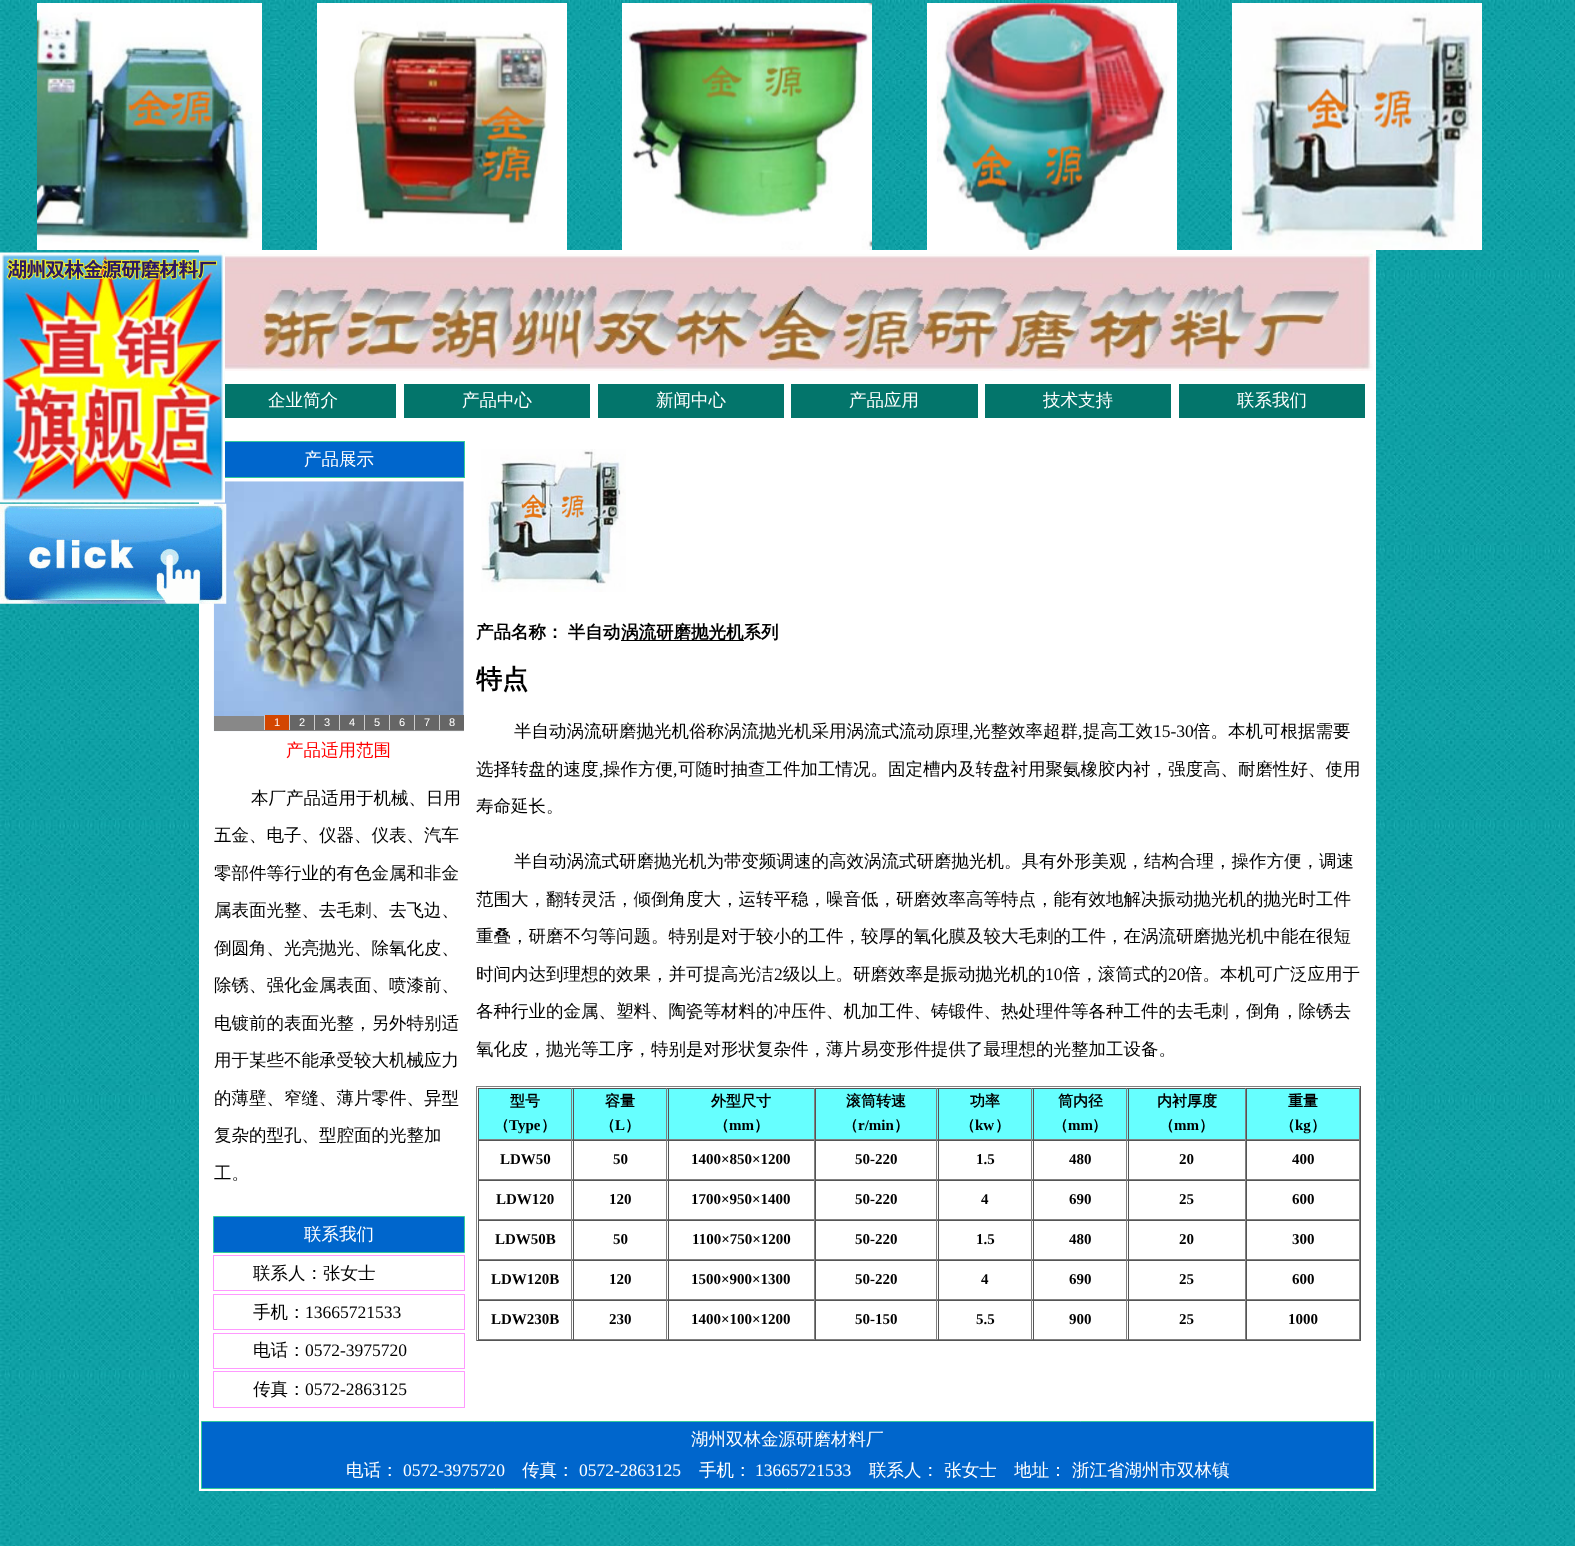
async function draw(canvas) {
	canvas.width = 1575;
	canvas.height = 1546;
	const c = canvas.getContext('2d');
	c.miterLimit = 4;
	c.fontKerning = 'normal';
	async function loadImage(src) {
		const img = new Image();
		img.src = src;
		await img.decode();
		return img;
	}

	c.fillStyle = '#fff';
	c.fillRect(0, 0, 1575, 1546);
	c.drawImage(await loadImage('img1.png'), 0, 0, 1575, 1546);
	c.drawImage(await loadImage('img2.png'), 37, 3, 225, 247);
	c.drawImage(await loadImage('img3.png'), 317, 3, 250, 247);
	c.drawImage(await loadImage('img4.png'), 622, 3, 250, 247);
	c.drawImage(await loadImage('img5.png'), 927, 3, 250, 247);
	c.drawImage(await loadImage('img6.png'), 1232, 3, 250, 247);
	c.fillRect(199, 250, 1177, 1241);
	c.fillStyle = '#06c';
	c.fillRect(225, 442, 239, 35);
	c.strokeStyle = '#3c9';
	c.strokeRect(213.5, 441.5, 251, 36);
	c.drawImage(await loadImage('img9.png'), 213, 481, 251, 251);
	c.drawImage(await loadImage('img7.png'), 0, 252, 225, 251);
	c.drawImage(await loadImage('img8.png'), 225, 253, 1148, 118);
	c.fillStyle = '#03756b';
	c.fillRect(225, 384, 171, 34);
	c.font = '500 17.5px WenQuanYi Zen Hei';
	c.fillStyle = '#fff';
	c.fillText('企业简介', 268, 406);
	c.fillStyle = '#03756b';
	c.fillRect(404, 384, 186, 34);
	c.fillStyle = '#fff';
	c.fillText('产品中心', 462, 406);
	c.fillStyle = '#03756b';
	c.fillRect(598, 384, 186, 34);
	c.fillStyle = '#fff';
	c.fillText('新闻中心', 656, 406);
	c.fillStyle = '#03756b';
	c.fillRect(791, 384, 187, 34);
	c.fillStyle = '#fff';
	c.fillText('产品应用', 849, 406);
	c.fillStyle = '#03756b';
	c.fillRect(985, 384, 186, 34);
	c.fillStyle = '#fff';
	c.fillText('技术支持', 1043, 406);
	c.fillStyle = '#03756b';
	c.fillRect(1179, 384, 186, 34);
	c.fillStyle = '#fff';
	c.fillText('联系我们', 1237, 406);
	c.fillText('产品展示', 304, 465);
	c.fillStyle = '#888';
	c.fillRect(214, 716, 250, 15);
	c.fillStyle = '#d34600';
	c.fillRect(265, 715, 24, 15);
	c.font = '11px Liberation Sans';
	c.fillStyle = '#fff';
	c.fillText('1', 274, 726);
	c.fillStyle = '#ccc';
	c.fillRect(264, 715, 1, 15);
	c.fillStyle = '#666';
	c.fillRect(290, 715, 24, 15);
	c.fillStyle = '#fff';
	c.fillText('2', 299, 726);
	c.fillStyle = '#ccc';
	c.fillRect(289, 715, 1, 15);
	c.fillStyle = '#666';
	c.fillRect(315, 715, 24, 15);
	c.fillStyle = '#fff';
	c.fillText('3', 324, 726);
	c.fillStyle = '#ccc';
	c.fillRect(314, 715, 1, 15);
	c.fillStyle = '#666';
	c.fillRect(340, 715, 24, 15);
	c.fillStyle = '#fff';
	c.fillText('4', 349, 726);
	c.fillStyle = '#ccc';
	c.fillRect(339, 715, 1, 15);
	c.fillStyle = '#666';
	c.fillRect(365, 715, 24, 15);
	c.fillStyle = '#fff';
	c.fillText('5', 374, 726);
	c.fillStyle = '#ccc';
	c.fillRect(364, 715, 1, 15);
	c.fillStyle = '#666';
	c.fillRect(390, 715, 24, 15);
	c.fillStyle = '#fff';
	c.fillText('6', 399, 726);
	c.fillStyle = '#ccc';
	c.fillRect(389, 715, 1, 15);
	c.fillStyle = '#666';
	c.fillRect(415, 715, 24, 15);
	c.fillStyle = '#fff';
	c.fillText('7', 424, 726);
	c.fillStyle = '#ccc';
	c.fillRect(414, 715, 1, 15);
	c.fillStyle = '#666';
	c.fillRect(440, 715, 24, 15);
	c.fillStyle = '#fff';
	c.fillText('8', 449, 726);
	c.fillStyle = '#ccc';
	c.fillRect(439, 715, 1, 15);
	c.font = '500 17.5px WenQuanYi Zen Hei';
	c.fillStyle = '#f00';
	c.fillText('产品适用范围', 286, 756);
	c.fillStyle = '#000';
	for (const [text, x, y] of [
		['本厂产品适用于机械、日用', 251, 804],
		['五金、电子、仪器、仪表、汽车', 214, 841],
		['零部件等行业的有色金属和非金', 214, 879],
		['属表面光整、去毛刺、去飞边、', 214, 916],
		['倒圆角、光亮抛光、除氧化皮、', 214, 954],
		['除锈、强化金属表面、喷漆前、', 214, 991],
		['电镀前的表面光整，另外特别适', 214, 1029],
		['用于某些不能承受较大机械应力', 214, 1066],
		['的薄壁、窄缝、薄片零件、异型', 214, 1104],
		['复杂的型孔、型腔面的光整加', 214, 1141],
		['工。', 214, 1179],
	]) {
		c.fillText(text, x, y);
	}
	c.fillStyle = '#06c';
	c.beginPath();
	c.rect(213.5, 1216.5, 251, 36);
	c.fill();
	c.stroke();
	c.fillStyle = '#fff';
	c.fillText('联系我们', 304, 1240);
	c.strokeStyle = '#f9f';
	c.strokeRect(213.5, 1255.5, 251, 35);
	c.fillStyle = '#000';
	c.fillText('联系人：张女士', 253, 1279);
	c.strokeRect(213.5, 1294.5, 251, 35);
	c.fillText('手机：', 253, 1318);
	c.font = '17.5px Liberation Serif';
	c.fillText('13665721533', 305, 1318);
	c.strokeRect(213.5, 1333.5, 251, 35);
	c.font = '500 17.5px WenQuanYi Zen Hei';
	c.fillText('电话：', 253, 1356);
	c.font = '17.5px Liberation Serif';
	c.fillText('0572-3975720', 305, 1356);
	c.strokeRect(213.5, 1371.5, 251, 36);
	c.font = '500 17.5px WenQuanYi Zen Hei';
	c.fillText('传真：', 253, 1395);
	c.font = '17.5px Liberation Serif';
	c.fillText('0572-2863125', 305, 1395);
	c.drawImage(await loadImage('img10.png'), 481, 449, 145, 143);
	c.wordSpacing = '-1px';
	c.font = 'bold 17.5px WenQuanYi Zen Hei';
	c.fillText('产品名称： 半自动', 476, 638);
	c.fillRect(621, 640, 123, 1);
	c.wordSpacing = '0px';
	c.fillText('涡流研磨抛光机系列', 621, 638);
	c.font = 'bold 26px WenQuanYi Zen Hei';
	c.fillText('特点', 476, 688);
	c.font = '500 17.5px WenQuanYi Zen Hei';
	c.fillText('半自动涡流研磨抛光机俗称涡流抛光机采用涡流式流动原理', 514, 737);
	c.font = '17.5px Liberation Serif';
	c.fillText(',', 969, 737);
	c.font = '500 17.5px WenQuanYi Zen Hei';
	c.fillText('光整效率超群', 973, 737);
	c.font = '17.5px Liberation Serif';
	c.fillText(',', 1078, 737);
	c.font = '500 17.5px WenQuanYi Zen Hei';
	c.fillText('提高工效', 1083, 737);
	c.font = '17.5px Liberation Serif';
	c.fillText('15-30', 1153, 737);
	c.font = '500 17.5px WenQuanYi Zen Hei';
	c.fillText('倍。本机可根据需要', 1193, 737);
	c.fillText('选择转盘的速度', 476, 775);
	c.font = '17.5px Liberation Serif';
	c.fillText(',', 599, 775);
	c.font = '500 17.5px WenQuanYi Zen Hei';
	c.fillText('操作方便', 603, 775);
	c.font = '17.5px Liberation Serif';
	c.fillText(',', 673, 775);
	c.font = '500 17.5px WenQuanYi Zen Hei';
	for (const [text, x, y] of [
		['可随时抽查工件加工情况。固定槽内及转盘衬用聚氨橡胶内衬，强度高、耐磨性好、使用', 678, 775],
		['寿命延长。', 476, 812],
		['半自动涡流式研磨抛光机为带变频调速的高效涡流式研磨抛光机。具有外形美观，结构合理，操作方便，调速', 514, 867],
		['范围大，翻转灵活，倾倒角度大，运转平稳，噪音低，研磨效率高等特点，能有效地解决振动抛光机的抛光时工件', 476, 905],
		['重叠，研磨不匀等问题。特别是对于较小的工件，较厚的氧化膜及较大毛刺的工件，在涡流研磨抛光机中能在很短', 476, 942],
		['时间内达到理想的效果，并可提高光洁', 476, 980],
	]) {
		c.fillText(text, x, y);
	}
	c.font = '17.5px Liberation Serif';
	c.fillText('2', 774, 980);
	c.font = '500 17.5px WenQuanYi Zen Hei';
	c.fillText('级以上。研磨效率是振动抛光机的', 783, 980);
	c.font = '17.5px Liberation Serif';
	c.fillText('10', 1045, 980);
	c.font = '500 17.5px WenQuanYi Zen Hei';
	c.fillText('倍，滚筒式的', 1063, 980);
	c.font = '17.5px Liberation Serif';
	c.fillText('20', 1168, 980);
	c.font = '500 17.5px WenQuanYi Zen Hei';
	for (const [text, x, y] of [
		['倍。本机可广泛应用于', 1185, 980],
		['各种行业的金属、塑料、陶瓷等材料的冲压件、机加工件、铸锻件、热处理件等各种工件的去毛刺，倒角，除锈去', 476, 1017],
		['氧化皮，抛光等工序，特别是对形状复杂件，薄片易变形件提供了最理想的光整加工设备。', 476, 1055],
	]) {
		c.fillText(text, x, y);
	}
	for (const [x, y, w, h, color] of [
		[476, 1086, 885, 1, '#808080'],
		[1360, 1086, 1, 255, '#555'],
		[476, 1340, 885, 1, '#555'],
		[476, 1086, 1, 255, '#808080'],
		[479, 1089, 94, 50, '#6ff'],
		[478, 1088, 882, 1, '#555'],
		[571, 1088, 1, 52, '#808080'],
		[478, 1139, 95, 1, '#808080'],
		[478, 1088, 1, 52, '#555'],
	]) {
		c.fillStyle = color;
		c.fillRect(x, y, w, h);
	}
	c.font = 'bold 15px WenQuanYi Zen Hei';
	c.fillStyle = '#000';
	c.fillText('型号', 510, 1106);
	c.fillText('（', 494, 1130);
	c.font = 'bold 15px Liberation Serif';
	c.fillText('Type', 509, 1130);
	c.font = 'bold 15px WenQuanYi Zen Hei';
	c.fillText('）', 541, 1130);
	for (const [x, y, w, h, color] of [
		[574, 1089, 94, 50, '#6ff'],
		[666, 1088, 1, 52, '#808080'],
		[573, 1139, 95, 1, '#808080'],
		[573, 1088, 1, 52, '#555'],
	]) {
		c.fillStyle = color;
		c.fillRect(x, y, w, h);
	}
	c.fillStyle = '#000';
	c.fillText('容量', 605, 1106);
	c.fillText('（', 600, 1130);
	c.font = 'bold 15px Liberation Serif';
	c.fillText('L', 615, 1130);
	c.font = 'bold 15px WenQuanYi Zen Hei';
	c.fillText('）', 625, 1130);
	for (const [x, y, w, h, color] of [
		[669, 1089, 145, 50, '#6ff'],
		[814, 1088, 1, 52, '#808080'],
		[668, 1139, 147, 1, '#808080'],
		[668, 1088, 1, 52, '#555'],
	]) {
		c.fillStyle = color;
		c.fillRect(x, y, w, h);
	}
	c.fillStyle = '#000';
	c.fillText('外型尺寸', 711, 1106);
	c.fillText('（', 714, 1130);
	c.font = 'bold 15px Liberation Serif';
	c.fillText('mm', 729, 1130);
	c.font = 'bold 15px WenQuanYi Zen Hei';
	c.fillText('）', 754, 1130);
	for (const [x, y, w, h, color] of [
		[816, 1089, 122, 50, '#6ff'],
		[936, 1088, 1, 52, '#808080'],
		[815, 1139, 123, 1, '#808080'],
		[815, 1088, 1, 52, '#555'],
	]) {
		c.fillStyle = color;
		c.fillRect(x, y, w, h);
	}
	c.fillStyle = '#000';
	c.fillText('滚筒转速', 846, 1106);
	c.fillText('（', 843, 1130);
	c.font = 'bold 15px Liberation Serif';
	c.fillText('r/min', 858, 1130);
	c.font = 'bold 15px WenQuanYi Zen Hei';
	c.fillText('）', 894, 1130);
	for (const [x, y, w, h, color] of [
		[939, 1089, 94, 50, '#6ff'],
		[1031, 1088, 1, 52, '#808080'],
		[938, 1139, 95, 1, '#808080'],
		[938, 1088, 1, 52, '#555'],
	]) {
		c.fillStyle = color;
		c.fillRect(x, y, w, h);
	}
	c.fillStyle = '#000';
	c.fillText('功率', 970, 1106);
	c.fillText('（', 960, 1130);
	c.font = 'bold 15px Liberation Serif';
	c.fillText('kw', 975, 1130);
	c.font = 'bold 15px WenQuanYi Zen Hei';
	c.fillText('）', 995, 1130);
	for (const [x, y, w, h, color] of [
		[1034, 1089, 94, 50, '#6ff'],
		[1126, 1088, 1, 52, '#808080'],
		[1033, 1139, 95, 1, '#808080'],
		[1033, 1088, 1, 52, '#555'],
	]) {
		c.fillStyle = color;
		c.fillRect(x, y, w, h);
	}
	c.fillStyle = '#000';
	c.fillText('筒内径', 1058, 1106);
	c.fillText('（', 1053, 1130);
	c.font = 'bold 15px Liberation Serif';
	c.fillText('mm', 1068, 1130);
	c.font = 'bold 15px WenQuanYi Zen Hei';
	c.fillText('）', 1092, 1130);
	for (const [x, y, w, h, color] of [
		[1129, 1089, 116, 50, '#6ff'],
		[1245, 1088, 1, 52, '#808080'],
		[1128, 1139, 118, 1, '#808080'],
		[1128, 1088, 1, 52, '#555'],
	]) {
		c.fillStyle = color;
		c.fillRect(x, y, w, h);
	}
	c.fillStyle = '#000';
	c.fillText('内衬厚度', 1157, 1106);
	c.fillText('（', 1159, 1130);
	c.font = 'bold 15px Liberation Serif';
	c.fillText('mm', 1174, 1130);
	c.font = 'bold 15px WenQuanYi Zen Hei';
	c.fillText('）', 1199, 1130);
	for (const [x, y, w, h, color] of [
		[1247, 1089, 112, 50, '#6ff'],
		[1359, 1088, 1, 52, '#808080'],
		[1246, 1139, 114, 1, '#808080'],
		[1246, 1088, 1, 52, '#555'],
	]) {
		c.fillStyle = color;
		c.fillRect(x, y, w, h);
	}
	c.fillStyle = '#000';
	c.fillText('重量', 1288, 1106);
	c.fillText('（', 1280, 1130);
	c.font = 'bold 15px Liberation Serif';
	c.fillText('kg', 1295, 1130);
	c.font = 'bold 15px WenQuanYi Zen Hei';
	c.fillText('）', 1311, 1130);
	for (const [x, y, w, h, color] of [
		[478, 1140, 882, 1, '#555'],
		[571, 1140, 1, 40, '#808080'],
		[478, 1179, 95, 1, '#808080'],
		[478, 1140, 1, 40, '#555'],
	]) {
		c.fillStyle = color;
		c.fillRect(x, y, w, h);
	}
	c.font = 'bold 15px Liberation Serif';
	c.fillStyle = '#000';
	c.fillText('LDW50', 500, 1164);
	for (const [x, y, w, h, color] of [
		[666, 1140, 1, 40, '#808080'],
		[573, 1179, 95, 1, '#808080'],
		[573, 1140, 1, 40, '#555'],
	]) {
		c.fillStyle = color;
		c.fillRect(x, y, w, h);
	}
	c.fillStyle = '#000';
	c.fillText('50', 613, 1164);
	for (const [x, y, w, h, color] of [
		[814, 1140, 1, 40, '#808080'],
		[668, 1179, 147, 1, '#808080'],
		[668, 1140, 1, 40, '#555'],
	]) {
		c.fillStyle = color;
		c.fillRect(x, y, w, h);
	}
	c.fillStyle = '#000';
	c.fillText('1400×850×1200', 691, 1164);
	for (const [x, y, w, h, color] of [
		[936, 1140, 1, 40, '#808080'],
		[815, 1179, 123, 1, '#808080'],
		[815, 1140, 1, 40, '#555'],
	]) {
		c.fillStyle = color;
		c.fillRect(x, y, w, h);
	}
	c.fillStyle = '#000';
	c.fillText('50-220', 855, 1164);
	for (const [x, y, w, h, color] of [
		[1031, 1140, 1, 40, '#808080'],
		[938, 1179, 95, 1, '#808080'],
		[938, 1140, 1, 40, '#555'],
	]) {
		c.fillStyle = color;
		c.fillRect(x, y, w, h);
	}
	c.fillStyle = '#000';
	c.fillText('1.5', 976, 1164);
	for (const [x, y, w, h, color] of [
		[1126, 1140, 1, 40, '#808080'],
		[1033, 1179, 95, 1, '#808080'],
		[1033, 1140, 1, 40, '#555'],
	]) {
		c.fillStyle = color;
		c.fillRect(x, y, w, h);
	}
	c.fillStyle = '#000';
	c.fillText('480', 1069, 1164);
	for (const [x, y, w, h, color] of [
		[1245, 1140, 1, 40, '#808080'],
		[1128, 1179, 118, 1, '#808080'],
		[1128, 1140, 1, 40, '#555'],
	]) {
		c.fillStyle = color;
		c.fillRect(x, y, w, h);
	}
	c.fillStyle = '#000';
	c.fillText('20', 1179, 1164);
	for (const [x, y, w, h, color] of [
		[1359, 1140, 1, 40, '#808080'],
		[1246, 1179, 114, 1, '#808080'],
		[1246, 1140, 1, 40, '#555'],
	]) {
		c.fillStyle = color;
		c.fillRect(x, y, w, h);
	}
	c.fillStyle = '#000';
	c.fillText('400', 1292, 1164);
	for (const [x, y, w, h, color] of [
		[478, 1180, 882, 1, '#555'],
		[571, 1180, 1, 40, '#808080'],
		[478, 1219, 95, 1, '#808080'],
		[478, 1180, 1, 40, '#555'],
	]) {
		c.fillStyle = color;
		c.fillRect(x, y, w, h);
	}
	c.fillStyle = '#000';
	c.fillText('LDW120', 496, 1204);
	for (const [x, y, w, h, color] of [
		[666, 1180, 1, 40, '#808080'],
		[573, 1219, 95, 1, '#808080'],
		[573, 1180, 1, 40, '#555'],
	]) {
		c.fillStyle = color;
		c.fillRect(x, y, w, h);
	}
	c.fillStyle = '#000';
	c.fillText('120', 609, 1204);
	for (const [x, y, w, h, color] of [
		[814, 1180, 1, 40, '#808080'],
		[668, 1219, 147, 1, '#808080'],
		[668, 1180, 1, 40, '#555'],
	]) {
		c.fillStyle = color;
		c.fillRect(x, y, w, h);
	}
	c.fillStyle = '#000';
	c.fillText('1700×950×1400', 691, 1204);
	for (const [x, y, w, h, color] of [
		[936, 1180, 1, 40, '#808080'],
		[815, 1219, 123, 1, '#808080'],
		[815, 1180, 1, 40, '#555'],
	]) {
		c.fillStyle = color;
		c.fillRect(x, y, w, h);
	}
	c.fillStyle = '#000';
	c.fillText('50-220', 855, 1204);
	for (const [x, y, w, h, color] of [
		[1031, 1180, 1, 40, '#808080'],
		[938, 1219, 95, 1, '#808080'],
		[938, 1180, 1, 40, '#555'],
	]) {
		c.fillStyle = color;
		c.fillRect(x, y, w, h);
	}
	c.fillStyle = '#000';
	c.fillText('4', 981, 1204);
	for (const [x, y, w, h, color] of [
		[1126, 1180, 1, 40, '#808080'],
		[1033, 1219, 95, 1, '#808080'],
		[1033, 1180, 1, 40, '#555'],
	]) {
		c.fillStyle = color;
		c.fillRect(x, y, w, h);
	}
	c.fillStyle = '#000';
	c.fillText('690', 1069, 1204);
	for (const [x, y, w, h, color] of [
		[1245, 1180, 1, 40, '#808080'],
		[1128, 1219, 118, 1, '#808080'],
		[1128, 1180, 1, 40, '#555'],
	]) {
		c.fillStyle = color;
		c.fillRect(x, y, w, h);
	}
	c.fillStyle = '#000';
	c.fillText('25', 1179, 1204);
	for (const [x, y, w, h, color] of [
		[1359, 1180, 1, 40, '#808080'],
		[1246, 1219, 114, 1, '#808080'],
		[1246, 1180, 1, 40, '#555'],
	]) {
		c.fillStyle = color;
		c.fillRect(x, y, w, h);
	}
	c.fillStyle = '#000';
	c.fillText('600', 1292, 1204);
	for (const [x, y, w, h, color] of [
		[478, 1220, 882, 1, '#555'],
		[571, 1220, 1, 40, '#808080'],
		[478, 1259, 95, 1, '#808080'],
		[478, 1220, 1, 40, '#555'],
	]) {
		c.fillStyle = color;
		c.fillRect(x, y, w, h);
	}
	c.fillStyle = '#000';
	c.fillText('LDW50B', 495, 1244);
	for (const [x, y, w, h, color] of [
		[666, 1220, 1, 40, '#808080'],
		[573, 1259, 95, 1, '#808080'],
		[573, 1220, 1, 40, '#555'],
	]) {
		c.fillStyle = color;
		c.fillRect(x, y, w, h);
	}
	c.fillStyle = '#000';
	c.fillText('50', 613, 1244);
	for (const [x, y, w, h, color] of [
		[814, 1220, 1, 40, '#808080'],
		[668, 1259, 147, 1, '#808080'],
		[668, 1220, 1, 40, '#555'],
	]) {
		c.fillStyle = color;
		c.fillRect(x, y, w, h);
	}
	c.fillStyle = '#000';
	c.fillText('1100×750×1200', 692, 1244);
	for (const [x, y, w, h, color] of [
		[936, 1220, 1, 40, '#808080'],
		[815, 1259, 123, 1, '#808080'],
		[815, 1220, 1, 40, '#555'],
	]) {
		c.fillStyle = color;
		c.fillRect(x, y, w, h);
	}
	c.fillStyle = '#000';
	c.fillText('50-220', 855, 1244);
	for (const [x, y, w, h, color] of [
		[1031, 1220, 1, 40, '#808080'],
		[938, 1259, 95, 1, '#808080'],
		[938, 1220, 1, 40, '#555'],
	]) {
		c.fillStyle = color;
		c.fillRect(x, y, w, h);
	}
	c.fillStyle = '#000';
	c.fillText('1.5', 976, 1244);
	for (const [x, y, w, h, color] of [
		[1126, 1220, 1, 40, '#808080'],
		[1033, 1259, 95, 1, '#808080'],
		[1033, 1220, 1, 40, '#555'],
	]) {
		c.fillStyle = color;
		c.fillRect(x, y, w, h);
	}
	c.fillStyle = '#000';
	c.fillText('480', 1069, 1244);
	for (const [x, y, w, h, color] of [
		[1245, 1220, 1, 40, '#808080'],
		[1128, 1259, 118, 1, '#808080'],
		[1128, 1220, 1, 40, '#555'],
	]) {
		c.fillStyle = color;
		c.fillRect(x, y, w, h);
	}
	c.fillStyle = '#000';
	c.fillText('20', 1179, 1244);
	for (const [x, y, w, h, color] of [
		[1359, 1220, 1, 40, '#808080'],
		[1246, 1259, 114, 1, '#808080'],
		[1246, 1220, 1, 40, '#555'],
	]) {
		c.fillStyle = color;
		c.fillRect(x, y, w, h);
	}
	c.fillStyle = '#000';
	c.fillText('300', 1292, 1244);
	for (const [x, y, w, h, color] of [
		[478, 1260, 882, 1, '#555'],
		[571, 1260, 1, 40, '#808080'],
		[478, 1299, 95, 1, '#808080'],
		[478, 1260, 1, 40, '#555'],
	]) {
		c.fillStyle = color;
		c.fillRect(x, y, w, h);
	}
	c.fillStyle = '#000';
	c.fillText('LDW120B', 491, 1284);
	for (const [x, y, w, h, color] of [
		[666, 1260, 1, 40, '#808080'],
		[573, 1299, 95, 1, '#808080'],
		[573, 1260, 1, 40, '#555'],
	]) {
		c.fillStyle = color;
		c.fillRect(x, y, w, h);
	}
	c.fillStyle = '#000';
	c.fillText('120', 609, 1284);
	for (const [x, y, w, h, color] of [
		[814, 1260, 1, 40, '#808080'],
		[668, 1299, 147, 1, '#808080'],
		[668, 1260, 1, 40, '#555'],
	]) {
		c.fillStyle = color;
		c.fillRect(x, y, w, h);
	}
	c.fillStyle = '#000';
	c.fillText('1500×900×1300', 691, 1284);
	for (const [x, y, w, h, color] of [
		[936, 1260, 1, 40, '#808080'],
		[815, 1299, 123, 1, '#808080'],
		[815, 1260, 1, 40, '#555'],
	]) {
		c.fillStyle = color;
		c.fillRect(x, y, w, h);
	}
	c.fillStyle = '#000';
	c.fillText('50-220', 855, 1284);
	for (const [x, y, w, h, color] of [
		[1031, 1260, 1, 40, '#808080'],
		[938, 1299, 95, 1, '#808080'],
		[938, 1260, 1, 40, '#555'],
	]) {
		c.fillStyle = color;
		c.fillRect(x, y, w, h);
	}
	c.fillStyle = '#000';
	c.fillText('4', 981, 1284);
	for (const [x, y, w, h, color] of [
		[1126, 1260, 1, 40, '#808080'],
		[1033, 1299, 95, 1, '#808080'],
		[1033, 1260, 1, 40, '#555'],
	]) {
		c.fillStyle = color;
		c.fillRect(x, y, w, h);
	}
	c.fillStyle = '#000';
	c.fillText('690', 1069, 1284);
	for (const [x, y, w, h, color] of [
		[1245, 1260, 1, 40, '#808080'],
		[1128, 1299, 118, 1, '#808080'],
		[1128, 1260, 1, 40, '#555'],
	]) {
		c.fillStyle = color;
		c.fillRect(x, y, w, h);
	}
	c.fillStyle = '#000';
	c.fillText('25', 1179, 1284);
	for (const [x, y, w, h, color] of [
		[1359, 1260, 1, 40, '#808080'],
		[1246, 1299, 114, 1, '#808080'],
		[1246, 1260, 1, 40, '#555'],
	]) {
		c.fillStyle = color;
		c.fillRect(x, y, w, h);
	}
	c.fillStyle = '#000';
	c.fillText('600', 1292, 1284);
	for (const [x, y, w, h, color] of [
		[478, 1300, 882, 1, '#555'],
		[571, 1300, 1, 40, '#808080'],
		[478, 1339, 95, 1, '#808080'],
		[478, 1300, 1, 40, '#555'],
	]) {
		c.fillStyle = color;
		c.fillRect(x, y, w, h);
	}
	c.fillStyle = '#000';
	c.fillText('LDW230B', 491, 1324);
	for (const [x, y, w, h, color] of [
		[666, 1300, 1, 40, '#808080'],
		[573, 1339, 95, 1, '#808080'],
		[573, 1300, 1, 40, '#555'],
	]) {
		c.fillStyle = color;
		c.fillRect(x, y, w, h);
	}
	c.fillStyle = '#000';
	c.fillText('230', 609, 1324);
	for (const [x, y, w, h, color] of [
		[814, 1300, 1, 40, '#808080'],
		[668, 1339, 147, 1, '#808080'],
		[668, 1300, 1, 40, '#555'],
	]) {
		c.fillStyle = color;
		c.fillRect(x, y, w, h);
	}
	c.fillStyle = '#000';
	c.fillText('1400×100×1200', 691, 1324);
	for (const [x, y, w, h, color] of [
		[936, 1300, 1, 40, '#808080'],
		[815, 1339, 123, 1, '#808080'],
		[815, 1300, 1, 40, '#555'],
	]) {
		c.fillStyle = color;
		c.fillRect(x, y, w, h);
	}
	c.fillStyle = '#000';
	c.fillText('50-150', 855, 1324);
	for (const [x, y, w, h, color] of [
		[1031, 1300, 1, 40, '#808080'],
		[938, 1339, 95, 1, '#808080'],
		[938, 1300, 1, 40, '#555'],
	]) {
		c.fillStyle = color;
		c.fillRect(x, y, w, h);
	}
	c.fillStyle = '#000';
	c.fillText('5.5', 976, 1324);
	for (const [x, y, w, h, color] of [
		[1126, 1300, 1, 40, '#808080'],
		[1033, 1339, 95, 1, '#808080'],
		[1033, 1300, 1, 40, '#555'],
	]) {
		c.fillStyle = color;
		c.fillRect(x, y, w, h);
	}
	c.fillStyle = '#000';
	c.fillText('900', 1069, 1324);
	for (const [x, y, w, h, color] of [
		[1245, 1300, 1, 40, '#808080'],
		[1128, 1339, 118, 1, '#808080'],
		[1128, 1300, 1, 40, '#555'],
	]) {
		c.fillStyle = color;
		c.fillRect(x, y, w, h);
	}
	c.fillStyle = '#000';
	c.fillText('25', 1179, 1324);
	for (const [x, y, w, h, color] of [
		[1359, 1300, 1, 40, '#808080'],
		[1246, 1339, 114, 1, '#808080'],
		[1246, 1300, 1, 40, '#555'],
	]) {
		c.fillStyle = color;
		c.fillRect(x, y, w, h);
	}
	c.fillStyle = '#000';
	c.fillText('1000', 1288, 1324);
	c.fillStyle = '#06c';
	c.beginPath();
	c.rect(201.5, 1421.5, 1172, 67);
	c.fill();
	c.strokeStyle = '#3c9';
	c.stroke();
	c.font = '500 17.5px WenQuanYi Zen Hei';
	c.fillStyle = '#fff';
	c.fillText('湖州双林金源研磨材料厂', 691, 1445);
	c.fillText('电话：', 346, 1476);
	c.font = '17.5px Liberation Serif';
	c.fillText('0572-3975720', 403, 1476);
	c.font = '500 17.5px WenQuanYi Zen Hei';
	c.fillText('传真：', 522, 1476);
	c.font = '17.5px Liberation Serif';
	c.fillText('0572-2863125', 579, 1476);
	c.font = '500 17.5px WenQuanYi Zen Hei';
	c.fillText('手机：', 699, 1476);
	c.font = '17.5px Liberation Serif';
	c.fillText('13665721533', 755, 1476);
	c.font = '500 17.5px WenQuanYi Zen Hei';
	c.fillText('联系人： 张女士　地址： 浙江省湖州市双林镇', 869, 1476);
	c.drawImage(await loadImage('img11.png'), 0, 503, 227, 101);
}

draw(document.querySelector('canvas'));
